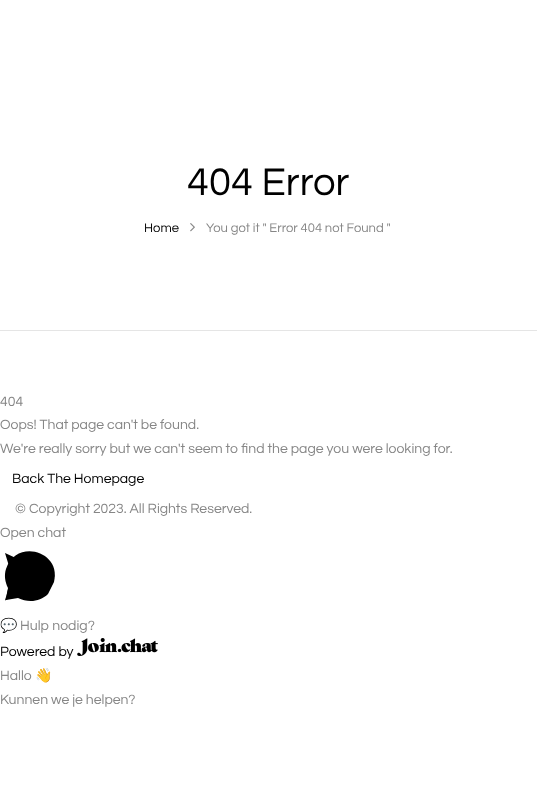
async function draw(canvas) {
	canvas.width = 537;
	canvas.height = 803;
	const c = canvas.getContext('2d');
	c.miterLimit = 4;
	c.fontKerning = 'normal';
	async function loadImage(src) {
		const img = new Image();
		img.src = src;
		await img.decode();
		return img;
	}

	c.fillStyle = '#fff';
	c.fillRect(0, 0, 537, 803);
	c.fillStyle = '#e5e5e5';
	c.fillRect(0, 330, 537, 1);
	c.font = '40px Questrial';
	c.fillStyle = '#000';
	c.fillText('404 Error', 187, 195);
	c.font = '13px Questrial';
	c.fillText('Home', 144, 232);
	c.drawImage(await loadImage('img1.png'), 190, 223, 5, 9);
	c.fillStyle = '#868686';
	c.fillText('You got it " Error 404 not Found "', 206, 232);
	c.font = '14px Questrial';
	for (const [text, x, y] of [
		['404', 0, 406],
		['Oops! That page can\'t be found.', 0, 429],
		['We\'re really sorry but we can\'t seem to find the page you were looking for.', 0, 453],
	]) {
		c.fillText(text, x, y);
	}
	c.fillStyle = '#000';
	c.fillText('Back The Homepage', 12, 483);
	c.fillStyle = '#868686';
	c.fillText('© Copyright 2023. All Rights Reserved.', 15, 513);
	c.fillText('Open chat', 0, 537);
	c.fillStyle = '#000';
	c.beginPath();
	c.moveTo(25, 576);
	c.lineTo(12, 576);
	c.lineTo(5, 553);
	c.lineTo(55, 576);
	c.lineTo(13, 596);
	c.bezierCurveTo(5, 600, 4, 603, 6, 597);
	c.lineTo(9, 585);
	c.fill();
	c.beginPath();
	c.moveTo(48, 594);
	c.bezierCurveTo(40, 602, 28, 603, 18, 598);
	c.lineTo(6, 600);
	c.lineTo(8, 588);
	c.bezierCurveTo(5, 582, 4, 575, 6, 569);
	c.bezierCurveTo(16, 538, 62, 551, 54, 582);
	c.fill();
	c.font = '14px Noto Color Emoji';
	c.fillStyle = '#868686';
	c.fillText('💬', 0, 630);
	c.font = '14px Questrial';
	c.fillText('Hulp nodig?', 20, 630);
	c.fillStyle = '#000';
	c.fillText('Powered by', 0, 656);
	c.drawImage(await loadImage('img2.png'), 77, 638, 81, 18);
	c.fillStyle = '#868686';
	c.fillText('Hallo', 0, 680);
	c.font = '14px Noto Color Emoji';
	c.fillText('👋', 35, 680);
	c.font = '14px Questrial';
	c.fillText('Kunnen we je helpen?', 0, 704);
}

draw(document.querySelector('canvas'));
